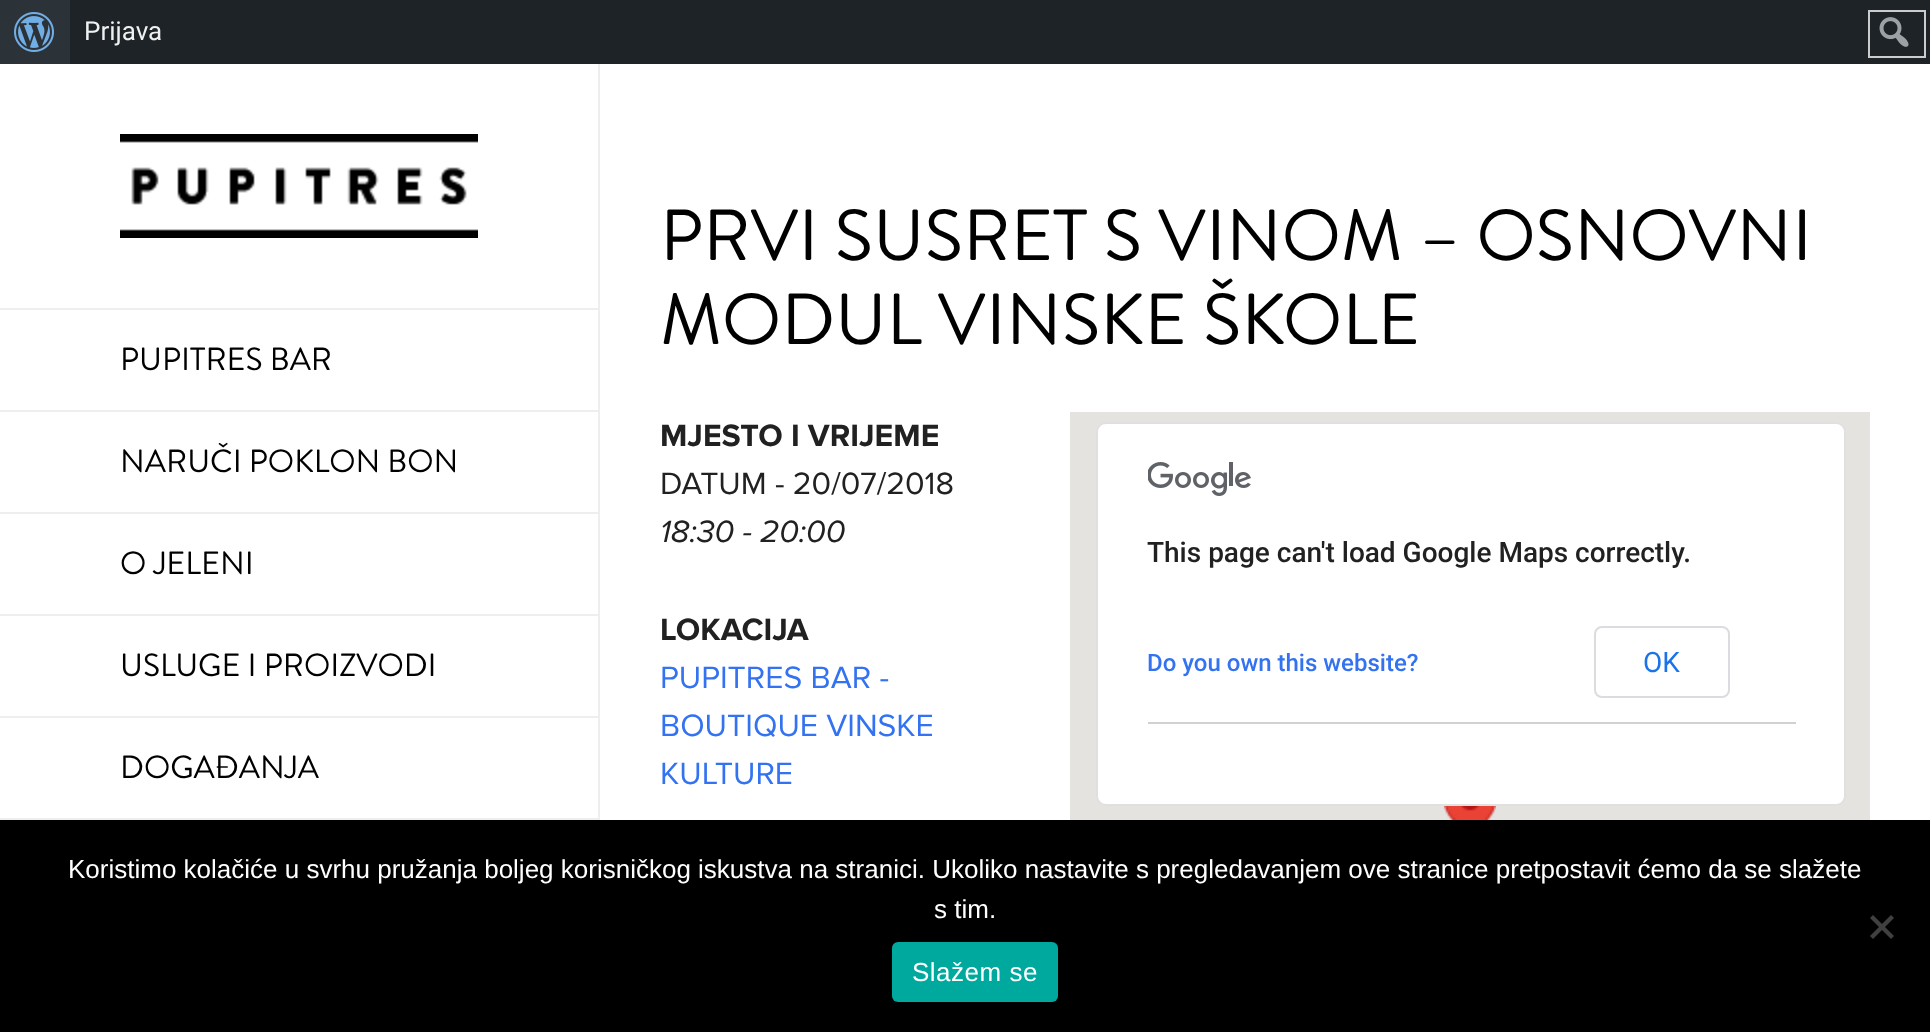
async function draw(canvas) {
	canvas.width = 1930;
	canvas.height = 1032;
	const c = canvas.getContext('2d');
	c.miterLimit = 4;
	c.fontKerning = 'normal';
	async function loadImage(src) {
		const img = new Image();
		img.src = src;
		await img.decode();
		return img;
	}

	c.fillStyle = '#fff';
	c.fillRect(0, 0, 1930, 1032);
	c.fillStyle = '#1d2327';
	c.fillRect(70, 0, 1860, 64);
	c.fillStyle = '#2c3338';
	c.fillRect(0, 0, 70, 64);
	c.drawImage(await loadImage('img1.png'), 14, 12, 40, 40);
	c.font = '26px Roboto';
	c.fillStyle = '#f0f0f1';
	c.fillText('Prijava', 84, 40);
	c.drawImage(await loadImage('img2.png'), 1879, 17, 30, 30);
	c.strokeStyle = '#ccc';
	c.lineWidth = 2;
	c.strokeRect(1869, 11, 56, 46);
	c.fillStyle = '#eee';
	c.fillRect(598, 64, 2, 756);
	c.drawImage(await loadImage('img3.png'), 120, 134, 358, 104);
	c.fillRect(0, 308, 598, 2);
	c.fillRect(0, 410, 598, 2);
	c.font = '32px Brandon Grotesque';
	c.fillStyle = '#000';
	c.fillText('PUPITRES BAR', 120, 370);
	c.fillStyle = '#eee';
	c.fillRect(0, 512, 598, 2);
	c.fillStyle = '#000';
	c.fillText('NARUČI POKLON BON', 120, 472);
	c.fillStyle = '#eee';
	c.fillRect(0, 614, 598, 2);
	c.fillStyle = '#000';
	c.fillText('O JELENI', 120, 574);
	c.fillStyle = '#eee';
	c.fillRect(0, 716, 598, 2);
	c.fillStyle = '#000';
	c.fillText('USLUGE I PROIZVODI', 120, 676);
	c.fillStyle = '#eee';
	c.fillRect(0, 818, 598, 2);
	c.fillStyle = '#000';
	c.fillText('DOGAĐANJA', 120, 778);
	c.font = '72px Brandon Grotesque';
	c.fillText('PRVI SUSRET S VINOM – OSNOVNI', 660, 260);
	c.fillText('MODUL VINSKE ŠKOLE', 660, 344);
	c.font = 'bold 32px Proxima Nova';
	c.fillStyle = '#212121';
	c.fillText('MJESTO I VRIJEME', 660, 446);
	c.font = '32px Proxima Nova';
	c.fillText('DATUM - 20/07/2018', 660, 494);
	c.font = 'italic 32px Proxima Nova';
	c.fillText('18:30 - 20:00', 660, 542);
	c.font = 'bold 32px Proxima Nova';
	c.fillText('LOKACIJA', 660, 640);
	c.font = '32px Proxima Nova';
	c.fillStyle = '#3372f0';
	for (const [text, x, y] of [
		['PUPITRES BAR -', 660, 688],
		['BOUTIQUE VINSKE', 660, 736],
		['KULTURE', 660, 784],
	]) {
		c.fillText(text, x, y);
	}
	c.fillStyle = '#e5e3df';
	c.fillRect(1070, 412, 800, 408);
	c.drawImage(await loadImage('img4.png'), 1444, 806, 52, 14);
	c.fillStyle = '#fff';
	c.beginPath();
	c.roundRect(1096, 422, 750, 384, 10);
	c.fill();
	c.beginPath();
	c.roundRect(1097, 423, 748, 382, 9);
	c.strokeStyle = '#0000001f';
	c.stroke();
	c.drawImage(await loadImage('img5.png'), 1148, 462, 103, 34);
	c.font = '500 28px Roboto';
	c.fillStyle = '#212121';
	c.fillText('This page can\'t load Google Maps correctly.', 1147, 562);
	c.font = '500 24px Roboto';
	c.fillStyle = '#3372f0';
	c.fillText('Do you own this website?', 1147, 671);
	c.fillStyle = '#d1d1d1';
	c.fillRect(1148, 722, 648, 2);
	c.beginPath();
	c.roundRect(1595, 627, 134, 70, 7);
	c.strokeStyle = '#dadce0';
	c.stroke();
	c.font = '28px Roboto';
	c.fillStyle = '#1a73e8';
	c.fillText('OK', 1643, 672);
	c.fillStyle = '#000';
	c.fillRect(0, 820, 1930, 212);
	c.font = '26px Liberation Sans';
	c.fillStyle = '#fff';
	c.fillText('Koristimo kolačiće u svrhu pružanja boljeg korisničkog iskustva na stranici. Ukoliko nastavite s pregledavanjem ove stranice pretpostavit ćemo da se slažete', 68, 878);
	c.fillText('s tim.', 934, 918);
	c.fillStyle = '#404040';
	c.beginPath();
	c.moveTo(1891, 915);
	c.lineTo(1894, 918);
	c.lineTo(1873, 939);
	c.lineTo(1870, 936);
	c.closePath();
	c.fill();
	c.beginPath();
	c.moveTo(1870, 918);
	c.lineTo(1873, 915);
	c.lineTo(1894, 936);
	c.lineTo(1891, 939);
	c.closePath();
	c.fill();
	c.fillStyle = '#00a99d';
	c.beginPath();
	c.roundRect(892, 942, 166, 60, 6);
	c.fill();
	c.letterSpacing = '0.5px';
	c.fillStyle = '#fff';
	c.fillText('Slažem se', 912, 981);
}

draw(document.querySelector('canvas'));
